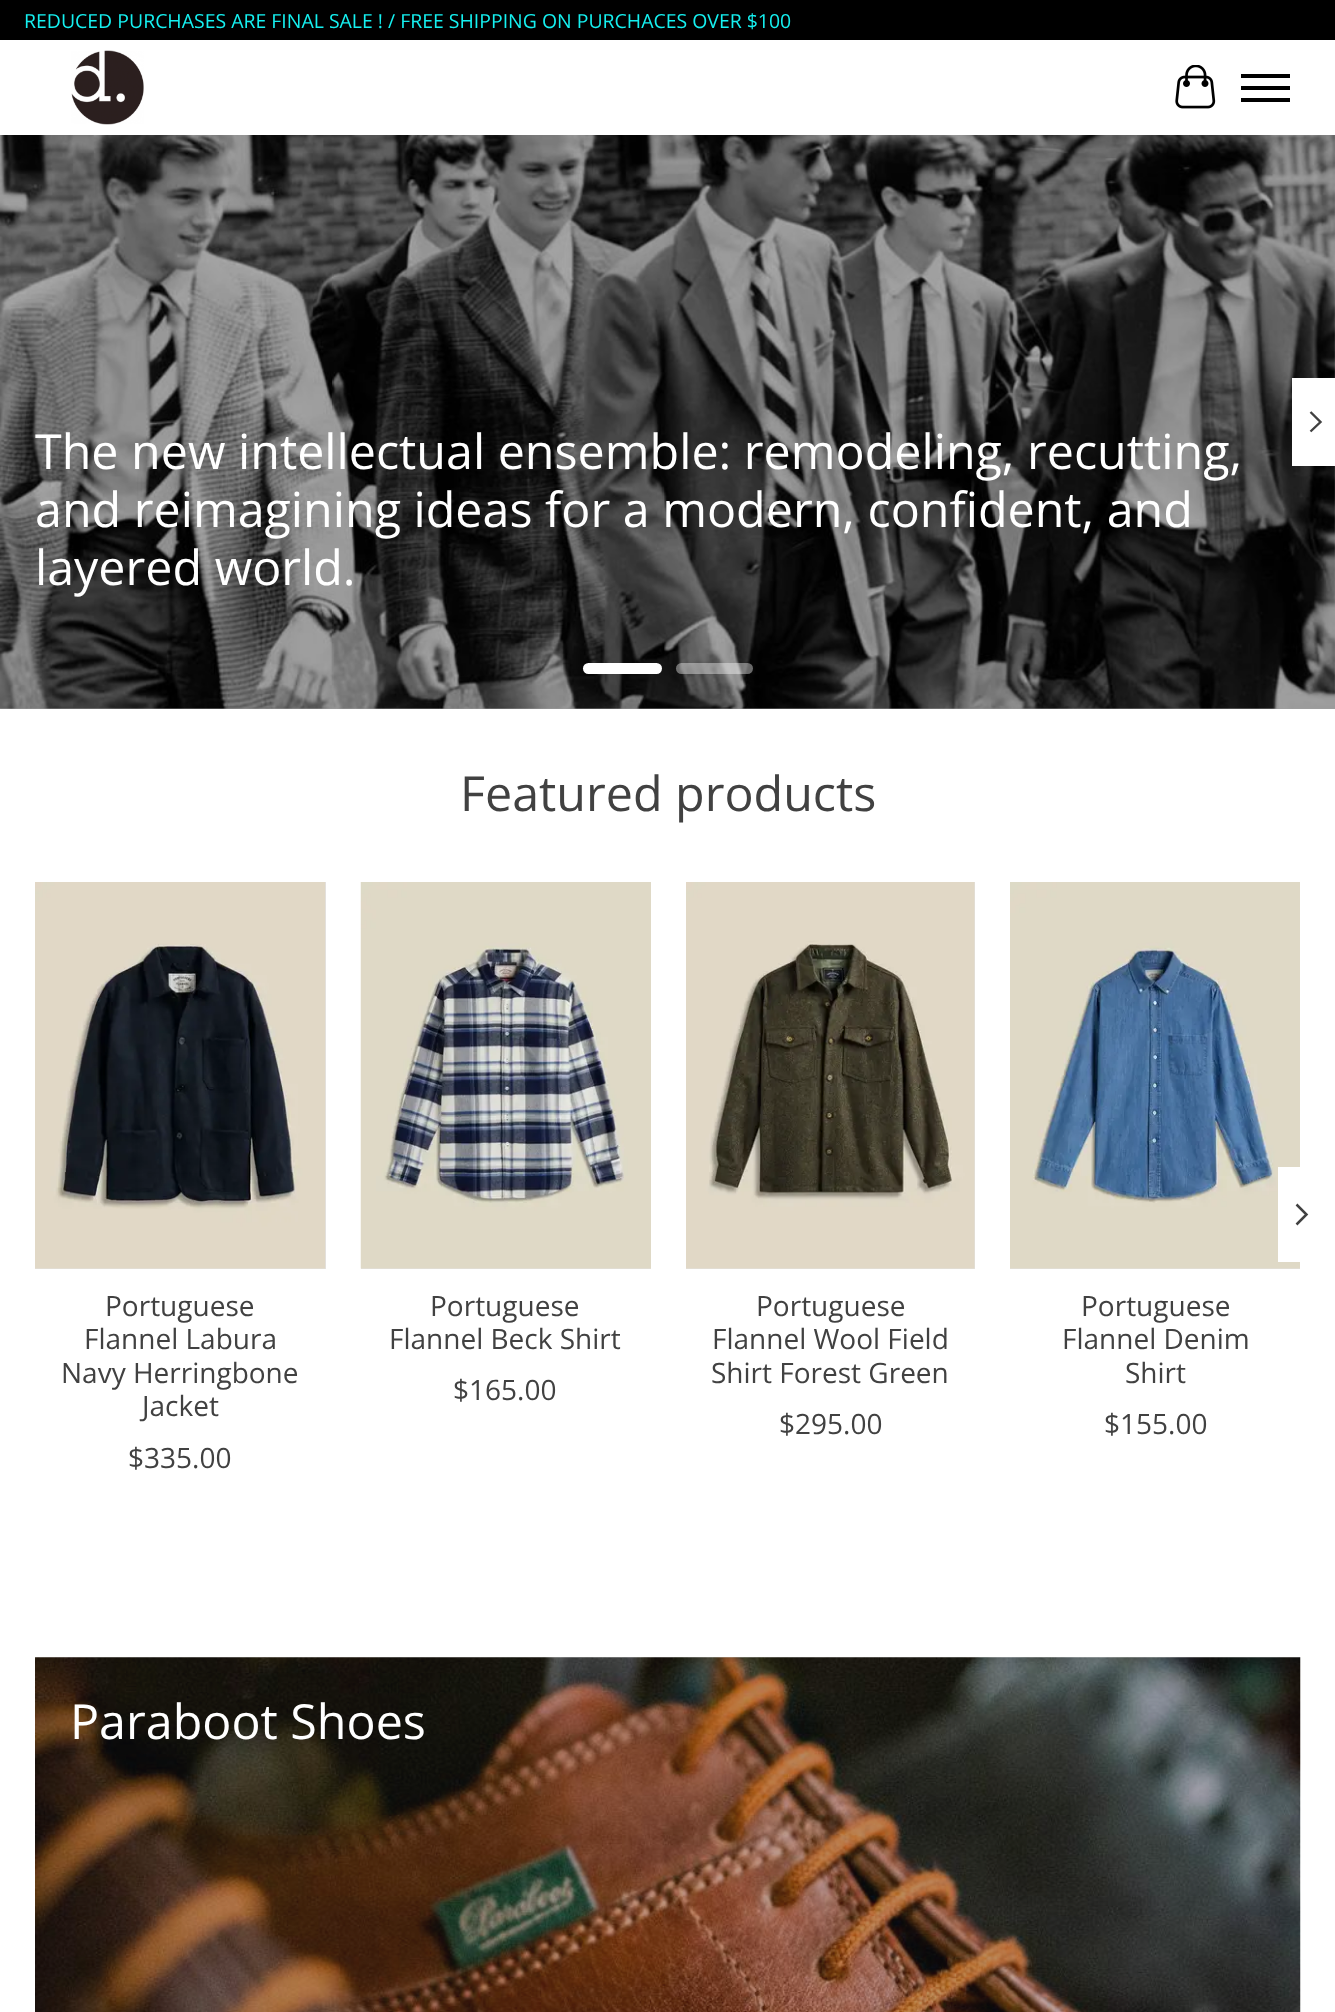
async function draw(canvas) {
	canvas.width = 1335;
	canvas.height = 2012;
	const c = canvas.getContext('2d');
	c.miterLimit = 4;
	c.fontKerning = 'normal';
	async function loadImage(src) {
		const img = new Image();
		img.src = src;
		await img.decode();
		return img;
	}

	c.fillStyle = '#fff';
	c.fillRect(0, 0, 1335, 2012);
	c.fillStyle = '#000';
	c.fillRect(0, 0, 1335, 40);
	c.font = '19.45px Open Sans';
	c.fillStyle = '#15f0f0';
	c.fillText('REDUCED PURCHASES ARE FINAL SALE ! / FREE SHIPPING ON PURCHACES OVER $100', 24, 28);
	c.drawImage(await loadImage('img1.png'), 71, 50, 73, 75);
	c.drawImage(await loadImage('img2.png'), 1175, 65, 41, 44);
	for (const [x, y, w, h, color] of [
		[1241, 86, 49, 4, '#000'],
		[1241, 74, 49, 4, '#000'],
		[1241, 98, 49, 4, '#000'],
		[0, 135, 1335, 574, '#9f9f9f'],
	]) {
		c.fillStyle = color;
		c.fillRect(x, y, w, h);
	}
	c.drawImage(await loadImage('img3.png'), 0, 135, 1335, 574);
	c.fillStyle = '#fff';
	c.fillRect(1292, 378, 43, 88);
	c.beginPath();
	c.moveTo(1310.5, 431.5);
	c.lineTo(1320.5, 422);
	c.lineTo(1310.5, 412);
	c.strokeStyle = '#414141';
	c.lineWidth = 2.4;
	c.stroke();
	c.font = '48.4px Open Sans';
	for (const [text, x, y] of [
		['The new intellectual ensemble: remodeling, recutting,', 35, 469],
		['and reimagining ideas for a modern, confident, and', 35, 527],
		['layered world.', 35, 585],
	]) {
		c.fillText(text, x, y);
	}
	c.beginPath();
	c.roundRect(583, 663, 79, 11, 5.5);
	c.fill();
	c.fillStyle = '#ffffff66';
	c.beginPath();
	c.roundRect(676, 663, 77, 11, 5.5);
	c.fill();
	c.fillStyle = '#414141';
	c.fillText('Featured products', 460, 811);
	c.fillStyle = '#e3e3e3';
	c.fillRect(1010, 1268, 290, 1);
	c.drawImage(await loadImage('img7.png'), 1010, 882, 290, 387);
	c.fillStyle = '#fff';
	c.fillRect(1278, 1167, 22, 95);
	c.beginPath();
	c.moveTo(1296.5, 1224.5);
	c.lineTo(1306.5, 1214.5);
	c.lineTo(1296.5, 1204.5);
	c.lineWidth = 2.5;
	c.stroke();
	c.fillStyle = '#e3e3e3';
	c.fillRect(35, 882, 291, 387);
	c.drawImage(await loadImage('img4.png'), 35, 882, 291, 387);
	c.font = '28px Open Sans';
	c.fillStyle = '#414141';
	for (const [text, x, y] of [
		['Portuguese', 105, 1316],
		['Flannel Labura', 84, 1349],
		['Navy Herringbone', 61, 1383],
		['Jacket', 142, 1416],
		['$335.00', 128, 1468],
	]) {
		c.fillText(text, x, y);
	}
	c.fillStyle = '#e3e3e3';
	c.fillRect(361, 1268, 290, 1);
	c.drawImage(await loadImage('img5.png'), 360, 882, 291, 387);
	c.fillStyle = '#414141';
	for (const [text, x, y] of [
		['Portuguese', 430, 1316],
		['Flannel Beck Shirt', 389, 1349],
		['$165.00', 453, 1400],
	]) {
		c.fillText(text, x, y);
	}
	c.fillStyle = '#e3e3e3';
	c.fillRect(686, 882, 289, 387);
	c.drawImage(await loadImage('img6.png'), 686, 882, 289, 387);
	c.fillStyle = '#414141';
	for (const [text, x, y] of [
		['Portuguese', 756, 1316],
		['Flannel Wool Field', 712, 1349],
		['Shirt Forest Green', 711, 1383],
		['$295.00', 779, 1434],
		['Portuguese', 1081, 1316],
		['Flannel Denim', 1062, 1349],
		['Shirt', 1125, 1383],
		['$155.00', 1104, 1434],
	]) {
		c.fillText(text, x, y);
	}
	c.drawImage(await loadImage('img8.png'), 35, 1657, 1266, 355);
	c.font = '48.4px Open Sans';
	c.fillStyle = '#fff';
	c.fillText('Paraboot Shoes', 70, 1739);
}

draw(document.querySelector('canvas'));
